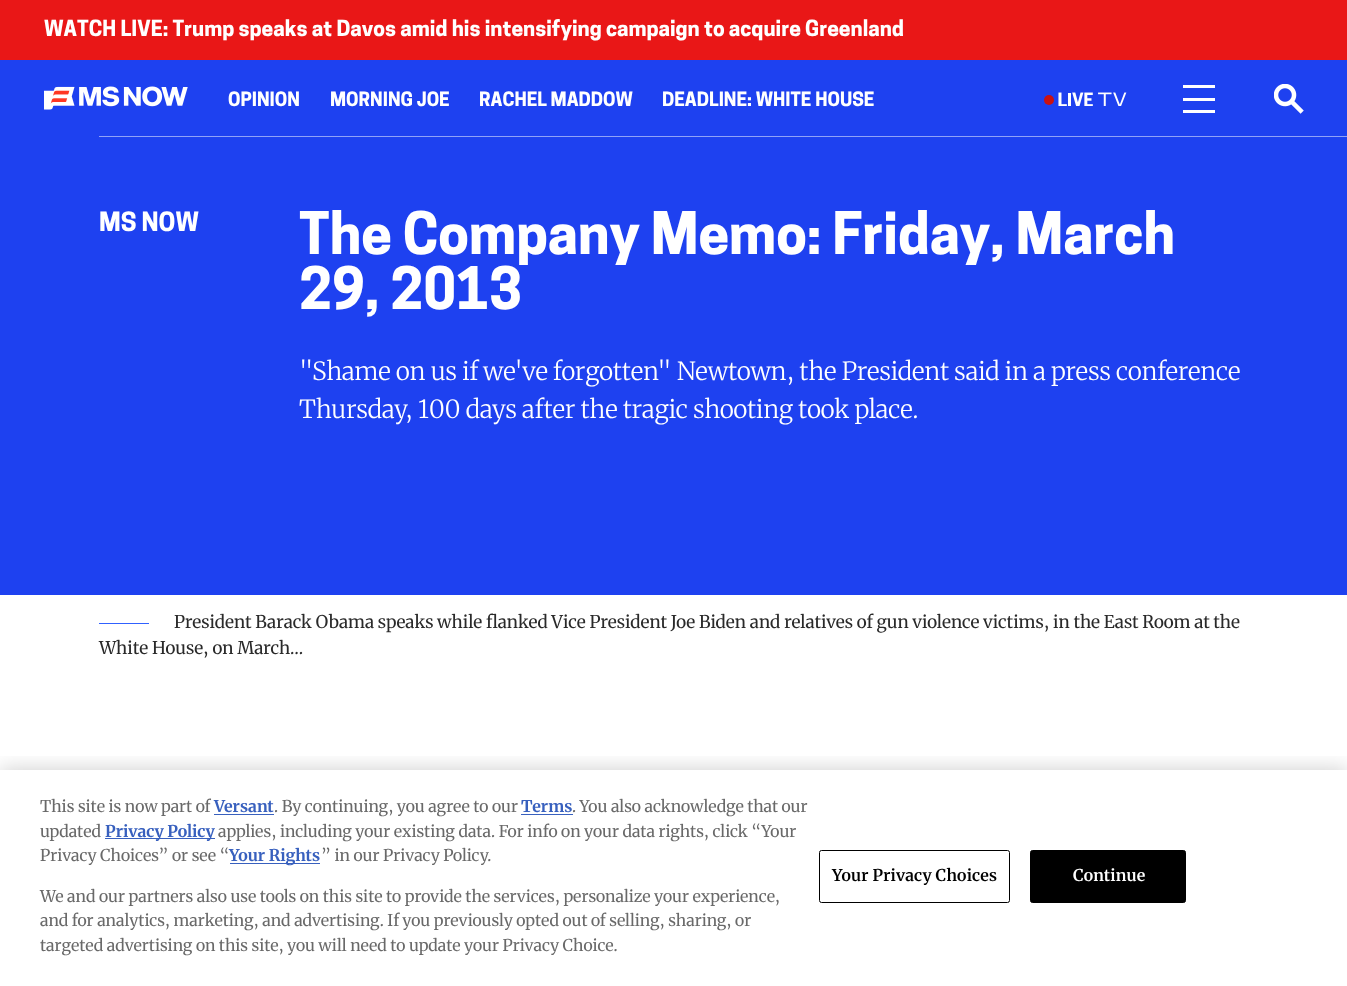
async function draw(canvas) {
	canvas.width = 1347;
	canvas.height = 986;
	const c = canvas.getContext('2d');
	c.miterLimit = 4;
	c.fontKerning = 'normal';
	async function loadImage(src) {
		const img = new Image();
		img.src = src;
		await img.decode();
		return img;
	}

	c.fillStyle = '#fff';
	c.fillRect(0, 0, 1347, 986);
	c.fillStyle = '#e91717';
	c.fillRect(0, 0, 1347, 60);
	c.font = 'bold 20.95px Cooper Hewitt';
	c.fillStyle = '#fff';
	c.fillText('WATCH LIVE: Trump speaks at Davos amid his intensifying campaign to acquire Greenland', 44, 36);
	c.fillStyle = '#1e41f0';
	c.fillRect(0, 60, 1347, 535);
	c.drawImage(await loadImage('img1.png'), 44, 86, 144, 24);
	c.font = 'bold 18.5px Cooper Hewitt';
	c.fillStyle = '#fff';
	for (const [text, x, y] of [
		['OPINION', 228, 106],
		['MORNING JOE', 330, 106],
		['RACHEL MADDOW', 479, 106],
		['DEADLINE: WHITE HOUSE', 662, 106],
	]) {
		c.fillText(text, x, y);
	}
	c.fillStyle = '#cb1111';
	c.beginPath();
	c.arc(1049, 100, 5, 0, 2 * Math.PI);
	c.fill();
	c.drawImage(await loadImage('img2.png'), 1058, 92, 69, 14);
	for (const [x, y, w, h, color] of [
		[1183, 85, 32, 3, '#fff'],
		[1183, 98, 32, 3, '#fff'],
		[1183, 110, 32, 3, '#fff'],
	]) {
		c.fillStyle = color;
		c.fillRect(x, y, w, h);
	}
	c.drawImage(await loadImage('img3.png'), 1274, 84, 30, 30);
	c.fillStyle = '#91a2f8';
	c.fillRect(99, 136, 1248, 1);
	c.font = 'bold 25px Cooper Hewitt';
	c.fillStyle = '#fff';
	c.fillText('MS NOW', 99, 231);
	c.letterSpacing = '-0.1px';
	c.font = 'bold 55px Cooper Hewitt';
	c.fillText('The Company Memo: Friday, March', 299, 254);
	c.fillText('29, 2013', 299, 309);
	c.letterSpacing = '0px';
	c.font = '300 25px Merriweather';
	c.fillText('"Shame on us if we\'ve forgotten" Newtown, the President said in a press conference', 299, 380);
	c.fillText('Thursday, 100 days after the tragic shooting took place.', 299, 418);
	c.fillStyle = '#3061ff';
	c.fillRect(99, 623, 50, 1);
	c.font = '17.5px Merriweather';
	c.fillStyle = '#2a2a2a';
	c.fillText('President Barack Obama speaks while flanked Vice President Joe Biden and relatives of gun violence victims, in the East Room at the', 174, 628);
	c.fillText('White House, on March…', 99, 654);
	c.save();
	c.beginPath();
	c.rect(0, 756, 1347, 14);
	c.clip();
	c.fillStyle = '#00000033';
	c.filter = 'blur(11px)';
	c.beginPath();
	c.rect(0, 770, 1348, 216);
	c.fill();
	c.filter = 'none';
	c.restore();
	c.font = '16.25px "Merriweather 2"';
	c.fillStyle = '#696969';
	c.fillText('This site is now part of', 40, 812);
	c.font = 'bold 16.25px Merriweather';
	c.fillStyle = '#3860be';
	c.fillText('Versant', 214, 812);
	c.fillRect(214, 814, 60, 1);
	c.font = '16.25px "Merriweather 2"';
	c.fillStyle = '#696969';
	c.fillText('. By continuing, you agree to our', 274, 812);
	c.font = 'bold 16.25px Merriweather';
	c.fillStyle = '#3860be';
	c.fillText('Terms', 521, 812);
	c.fillRect(521, 814, 52, 1);
	c.font = '16.25px "Merriweather 2"';
	c.fillStyle = '#696969';
	c.fillText('. You also acknowledge that our', 572, 812);
	c.fillText('updated', 40, 837);
	c.fillStyle = '#3860be';
	c.fillRect(105, 838, 110, 1);
	c.font = 'bold 16.25px Merriweather';
	c.fillText('Privacy Policy', 105, 837);
	c.font = '16.25px "Merriweather 2"';
	c.fillStyle = '#696969';
	c.fillText('applies, including your existing data. For info on your data rights, click “Your', 218, 837);
	c.fillText('Privacy Choices” or see “', 40, 861);
	c.fillStyle = '#3860be';
	c.fillRect(230, 863, 90, 1);
	c.font = 'bold 16.25px Merriweather';
	c.fillText('Your Rights', 229, 861);
	c.font = '16.25px "Merriweather 2"';
	c.fillStyle = '#696969';
	for (const [text, x, y] of [
		['” in our Privacy Policy.', 321, 861],
		['We and our partners also use tools on this site to provide the services, personalize your experience,', 40, 902],
		['and for analytics, marketing, and advertising. If you previously opted out of selling, sharing, or', 40, 926],
		['targeted advertising on this site, you will need to update your Privacy Choice.', 40, 951],
	]) {
		c.fillText(text, x, y);
	}
	c.beginPath();
	c.roundRect(819.5, 850.5, 190, 52, 2);
	c.strokeStyle = '#000';
	c.stroke();
	c.letterSpacing = '0.2px';
	c.font = '600 16.25px Merriweather';
	c.fillStyle = '#000';
	c.fillText('Your Privacy Choices', 832, 881);
	c.beginPath();
	c.roundRect(1030.5, 850.5, 155, 52, 2);
	c.fill();
	c.stroke();
	c.fillStyle = '#fff';
	c.fillText('Continue', 1073, 881);
}

draw(document.querySelector('canvas'));
